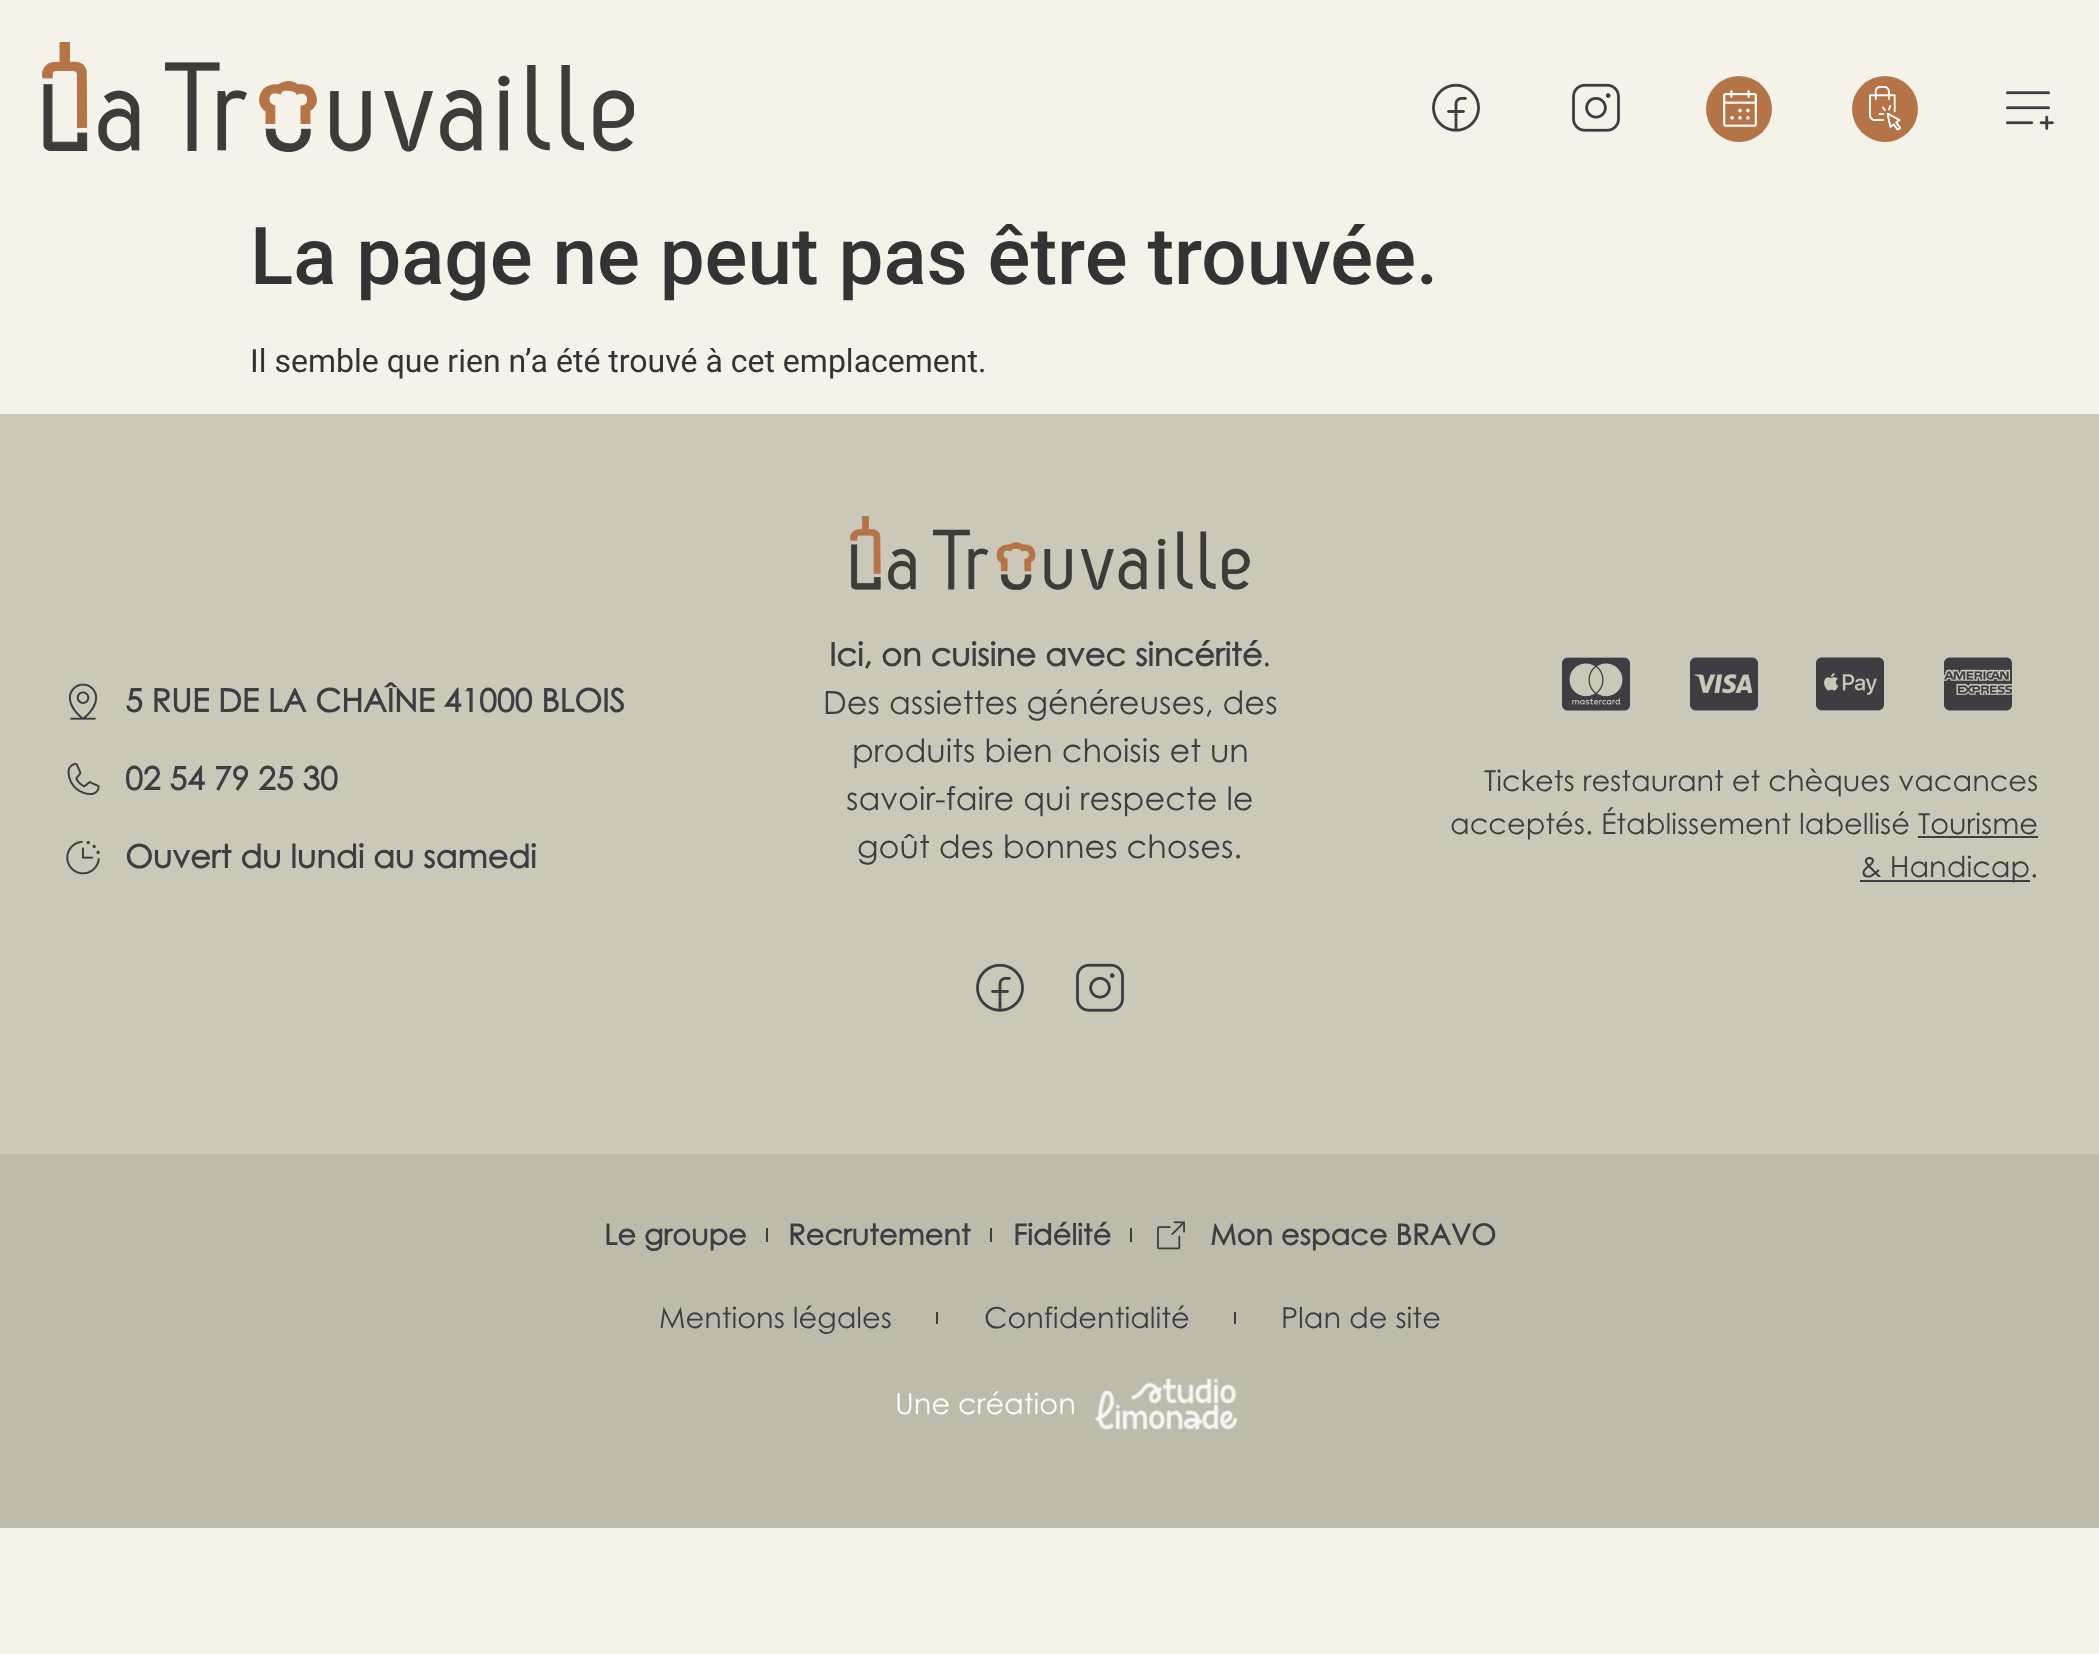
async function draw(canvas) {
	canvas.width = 2099;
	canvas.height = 1654;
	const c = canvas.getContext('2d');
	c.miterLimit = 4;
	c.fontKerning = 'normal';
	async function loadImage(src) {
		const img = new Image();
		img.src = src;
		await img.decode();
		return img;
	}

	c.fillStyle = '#f5f2ea';
	c.fillRect(0, 0, 2099, 1654);
	c.drawImage(await loadImage('img1.png'), 42, 42, 592, 110);
	c.drawImage(await loadImage('img2.png'), 1432, 83, 48, 49);
	c.drawImage(await loadImage('img3.png'), 1572, 83, 48, 49);
	c.fillStyle = '#b47447';
	c.beginPath();
	c.arc(1739, 109, 33, 0, 2 * Math.PI);
	c.fill();
	c.drawImage(await loadImage('img4.png'), 1723, 90, 34, 37);
	c.beginPath();
	c.arc(1885, 109, 33, 0, 2 * Math.PI);
	c.fill();
	c.drawImage(await loadImage('img5.png'), 1869, 86, 32, 45);
	c.drawImage(await loadImage('img6.png'), 2006, 91, 48, 39);
	c.font = '500 80px Roboto';
	c.fillStyle = '#333';
	c.fillText('La page ne peut pas être trouvée.', 250, 284);
	c.font = '32px Roboto';
	c.fillText('Il semble que rien n’a été trouvé à cet emplacement.', 250, 372);
	c.fillStyle = '#cbc7b9';
	c.fillRect(0, 414, 2099, 740);
	c.drawImage(await loadImage('img7.png'), 68, 683, 30, 37);
	c.font = 'bold 32px Century Gothic';
	c.fillStyle = '#3f3c42';
	c.fillText('5 RUE DE LA CHAÎNE 41000 BLOIS', 125, 712);
	c.drawImage(await loadImage('img8.png'), 67, 762, 33, 33);
	c.fillText('02 54 79 25 30', 125, 790);
	c.drawImage(await loadImage('img9.png'), 66, 840, 34, 35);
	c.fillText('Ouvert du lundi au samedi', 125, 868);
	c.drawImage(await loadImage('img10.png'), 850, 516, 400, 74);
	c.fillText('Ici, on cuisine avec sincérité', 829, 666);
	c.font = '32px Century Gothic';
	for (const [text, x, y] of [
		['.', 1262, 666],
		['Des assiettes généreuses, des', 823, 714],
		['produits bien choisis et un', 852, 762],
		['savoir-faire qui respecte le', 846, 810],
		['goût des bonnes choses.', 857, 858],
	]) {
		c.fillText(text, x, y);
	}
	c.drawImage(await loadImage('img11.png'), 976, 963, 48, 49);
	c.drawImage(await loadImage('img12.png'), 1076, 963, 48, 49);
	c.drawImage(await loadImage('img13.png'), 1562, 657, 68, 54);
	c.drawImage(await loadImage('img14.png'), 1690, 657, 68, 54);
	c.drawImage(await loadImage('img15.png'), 1816, 657, 68, 54);
	c.drawImage(await loadImage('img16.png'), 1944, 657, 68, 54);
	c.font = '28.8px Century Gothic';
	c.fillText('Tickets restaurant et chèques vacances', 1484, 791);
	c.fillText('acceptés. Établissement labellisé Tourisme', 1450, 834);
	c.fillRect(1860, 880, 170, 2);
	c.fillText('& Handicap.', 1860, 877);
	c.fillRect(1918, 836, 120, 2);
	c.fillStyle = '#bebbad';
	c.fillRect(0, 1154, 2099, 374);
	c.font = 'bold 28.8px Century Gothic';
	c.fillStyle = '#3f3c42';
	c.fillText('Le groupe', 604, 1245);
	c.fillRect(766, 1228, 2, 14);
	c.fillText('Recrutement', 788, 1245);
	c.fillRect(990, 1228, 2, 14);
	c.fillText('Fidélité', 1013, 1245);
	c.fillRect(1130, 1228, 2, 14);
	c.drawImage(await loadImage('img17.png'), 1157, 1221, 28, 29);
	c.fillText('Mon espace BRAVO', 1210, 1245);
	c.font = '28.8px Century Gothic';
	c.fillText('Mentions légales', 659, 1328);
	c.fillRect(936, 1312, 2, 12);
	c.fillText('Confidentialité', 984, 1328);
	c.fillRect(1234, 1312, 2, 12);
	c.fillText('Plan de site', 1281, 1328);
	c.fillStyle = '#fff';
	c.fillText('Une création', 895, 1414);
	c.drawImage(await loadImage('img18.png'), 1095, 1378, 143, 52);
}

draw(document.querySelector('canvas'));
